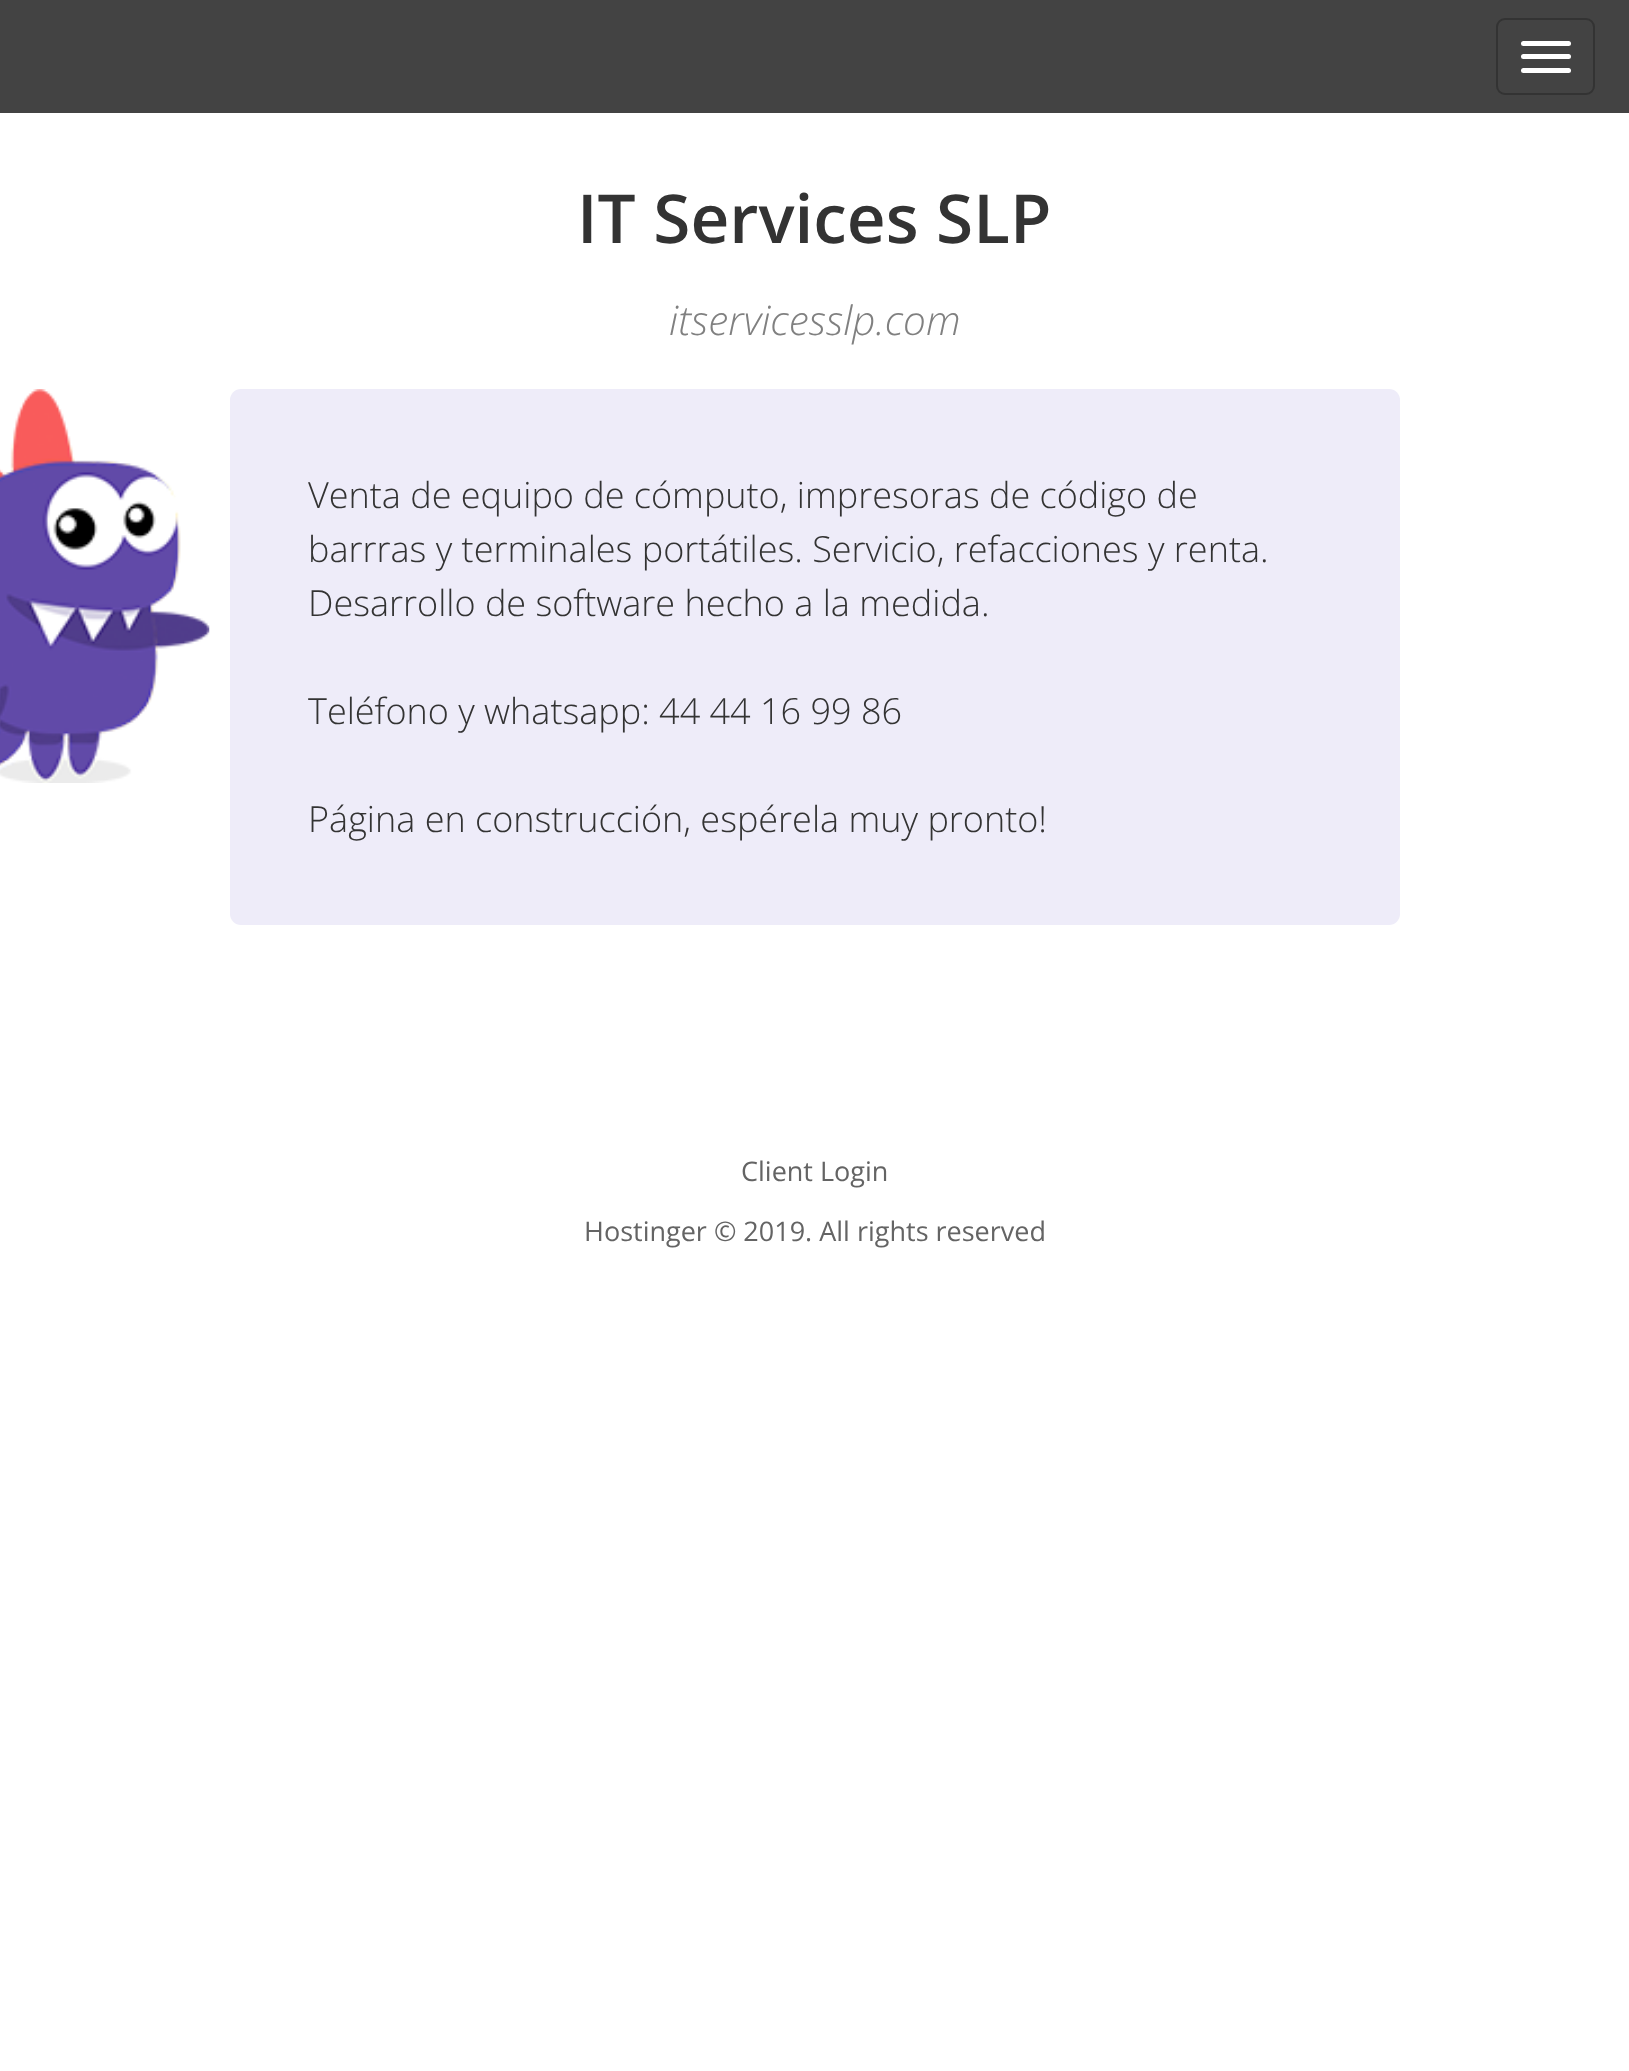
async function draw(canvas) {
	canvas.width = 1629;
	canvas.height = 2071;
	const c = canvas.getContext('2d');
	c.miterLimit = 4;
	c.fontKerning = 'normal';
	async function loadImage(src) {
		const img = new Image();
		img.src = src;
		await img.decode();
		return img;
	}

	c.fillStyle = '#fff';
	c.fillRect(0, 0, 1629, 2071);
	c.fillStyle = '#434343';
	c.fillRect(0, 0, 1629, 113);
	c.beginPath();
	c.roundRect(1497, 19, 97, 75, 8);
	c.strokeStyle = '#333';
	c.lineWidth = 2;
	c.stroke();
	c.fillStyle = '#fff';
	c.beginPath();
	c.roundRect(1521, 41, 50, 5, 2.5);
	c.fill();
	c.beginPath();
	c.roundRect(1521, 54, 50, 5, 2.5);
	c.fill();
	c.beginPath();
	c.roundRect(1521, 68, 50, 5, 2.5);
	c.fill();
	c.font = '600 67.5px Open Sans';
	c.fillStyle = '#333';
	c.fillText('IT Services SLP', 577, 243);
	c.font = 'italic 300 40.5px Open Sans';
	c.fillStyle = '#808080';
	c.fillText('itservicesslp.com', 669, 335);
	c.fillStyle = '#eeecf9';
	c.beginPath();
	c.roundRect(230, 389, 1170, 536, 11);
	c.fill();
	c.drawImage(await loadImage('img1.png'), 0, 389, 210, 394);
	c.font = '300 36px Open Sans';
	c.fillStyle = '#333';
	for (const [text, x, y] of [
		['Venta de equipo de cómputo, impresoras de código de', 308, 508],
		['barrras y terminales portátiles. Servicio, refacciones y renta.', 308, 562],
		['Desarrollo de software hecho a la medida.', 308, 616],
		['Teléfono y whatsapp: 44 44 16 99 86', 308, 724],
		['Página en construcción, espérela muy pronto!', 308, 832],
	]) {
		c.fillText(text, x, y);
	}
	c.font = '27px Open Sans';
	c.fillStyle = '#646464';
	c.fillText('Client Login', 741, 1181);
	c.fillText('Hostinger © 2019. All rights reserved', 584, 1241);
}

draw(document.querySelector('canvas'));
